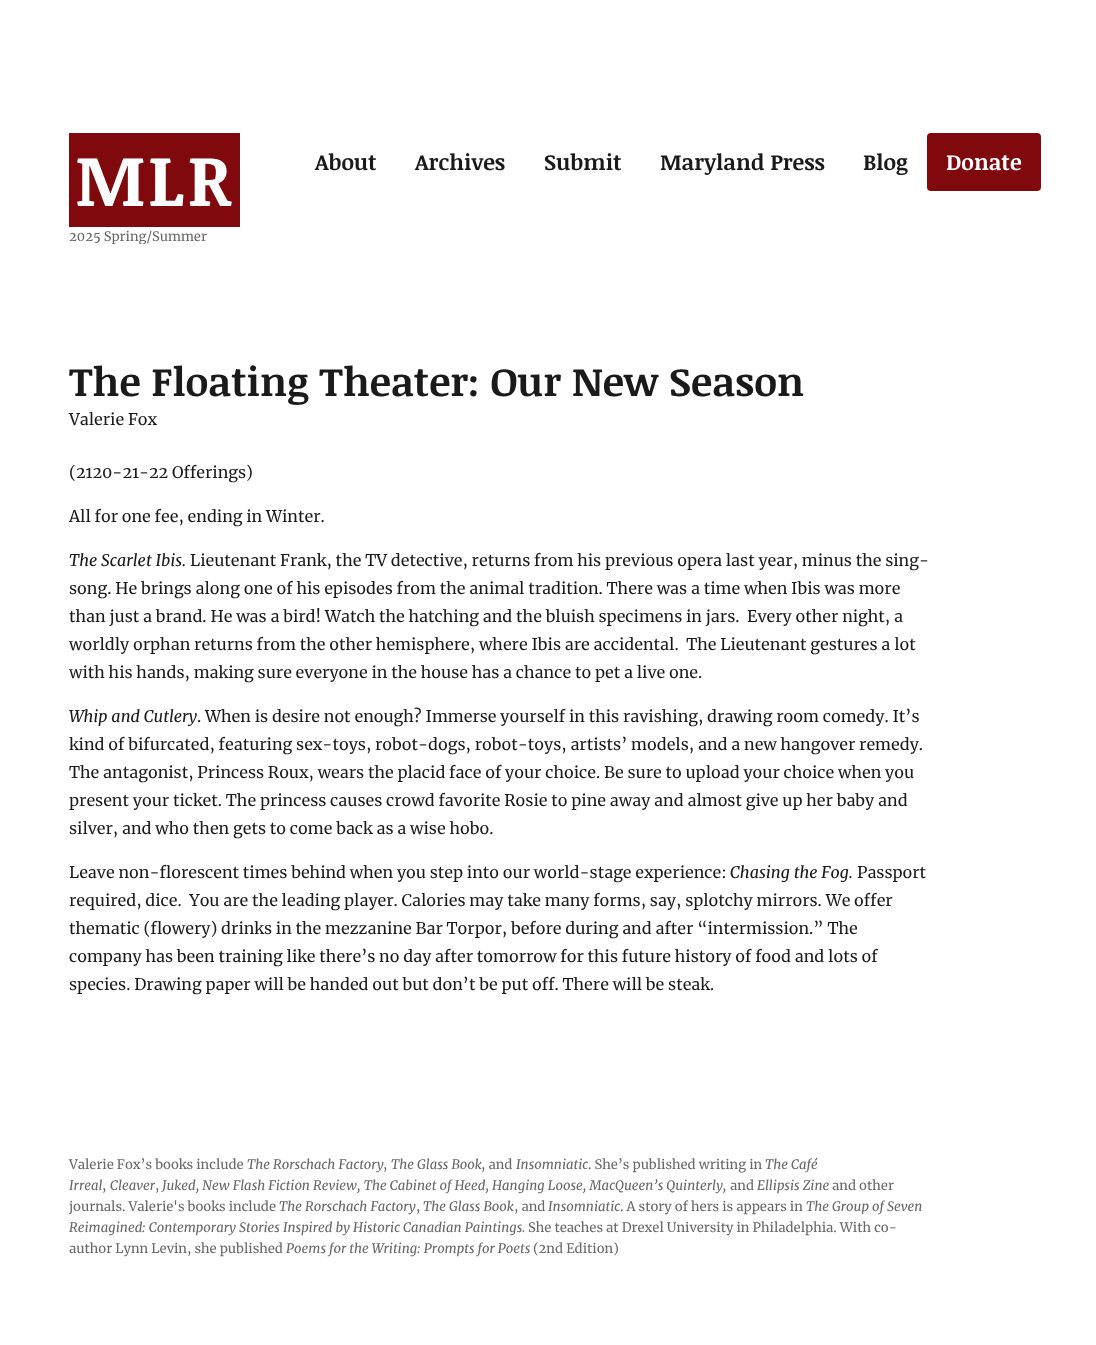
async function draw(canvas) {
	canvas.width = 1096;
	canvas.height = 1345;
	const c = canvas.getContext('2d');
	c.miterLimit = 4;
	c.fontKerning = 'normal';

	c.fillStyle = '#fff';
	c.fillRect(0, 0, 1096, 1345);
	c.fillStyle = '#80090d';
	c.fillRect(69, 133, 171, 94);
	c.letterSpacing = '2px';
	c.font = 'bold 72px Noticia Text';
	c.fillStyle = '#fff';
	c.fillText('MLR', 75, 206);
	c.save();
	c.beginPath();
	c.rect(69, 133, 171, 111);
	c.clip();
	c.letterSpacing = '0px';
	c.font = '13px Merriweather';
	c.fillStyle = '#686868';
	c.fillText('2025 Spring/Summer', 69, 241);
	c.restore();
	c.letterSpacing = '0px';
	c.font = 'bold 22px Noticia Text';
	c.fillStyle = '#1a1a1a';
	for (const [text, x, y] of [
		['About', 315, 170],
		['Archives', 415, 170],
		['Submit', 544, 170],
		['Maryland Press', 660, 170],
		['Blog', 863, 170],
	]) {
		c.fillText(text, x, y);
	}
	c.fillStyle = '#80090d';
	c.beginPath();
	c.roundRect(927, 133, 114, 58, 4);
	c.fill();
	c.fillStyle = '#fff';
	c.fillText('Donate', 946, 170);
	c.font = 'bold 40px Noticia Text';
	c.fillStyle = '#1a1a1a';
	c.fillText('The Floating Theater: Our New Season', 69, 396);
	c.font = '16px Merriweather';
	for (const [text, x, y] of [
		['Valerie Fox', 69, 425],
		['(2120-21-22 Offerings)', 69, 478],
		['All for one fee, ending in Winter.', 69, 522],
	]) {
		c.fillText(text, x, y);
	}
	c.font = 'italic 16px Merriweather';
	c.fillText('The Scarlet Ibis.', 69, 566);
	c.font = '16px Merriweather';
	for (const [text, x, y] of [
		['Lieutenant Frank, the TV detective, returns from his previous opera last year, minus the sing-', 190, 566],
		['song. He brings along one of his episodes from the animal tradition. There was a time when Ibis was more', 69, 594],
		['than just a brand. He was a bird! Watch the hatching and the bluish specimens in jars.  Every other night, a', 69, 622],
		['worldly orphan returns from the other hemisphere, where Ibis are accidental.  The Lieutenant gestures a lot', 69, 650],
		['with his hands, making sure everyone in the house has a chance to pet a live one.', 69, 678],
	]) {
		c.fillText(text, x, y);
	}
	c.font = 'italic 16px Merriweather';
	c.fillText('Whip and Cutlery', 69, 722);
	c.font = '16px Merriweather';
	for (const [text, x, y] of [
		['. When is desire not enough? Immerse yourself in this ravishing, drawing room comedy. It’s', 197, 722],
		['kind of bifurcated, featuring sex-toys, robot-dogs, robot-toys, artists’ models, and a new hangover remedy.', 69, 750],
		['The antagonist, Princess Roux, wears the placid face of your choice. Be sure to upload your choice when you', 69, 778],
		['present your ticket. The princess causes crowd favorite Rosie to pine away and almost give up her baby and', 69, 806],
		['silver, and who then gets to come back as a wise hobo.', 69, 834],
		['Leave non-florescent times behind when you step into our world-stage experience:', 69, 878],
	]) {
		c.fillText(text, x, y);
	}
	c.font = 'italic 16px Merriweather';
	c.fillText('Chasing the Fog.', 730, 878);
	c.font = '16px Merriweather';
	for (const [text, x, y] of [
		['Passport', 857, 878],
		['required, dice.  You are the leading player. Calories may take many forms, say, splotchy mirrors. We offer', 69, 906],
		['thematic (flowery) drinks in the mezzanine Bar Torpor, before during and after “intermission.” The', 69, 934],
		['company has been training like there’s no day after tomorrow for this future history of food and lots of', 69, 962],
		['species. Drawing paper will be handed out but don’t be put off. There will be steak.', 69, 990],
	]) {
		c.fillText(text, x, y);
	}
	c.font = '13px Merriweather';
	c.fillStyle = '#686868';
	c.fillText('Valerie Fox’s books include', 69, 1169);
	c.font = 'italic 13px Merriweather';
	c.fillText('The Rorschach Factory', 247, 1169);
	c.font = '13px Merriweather';
	c.fillText(',', 383, 1169);
	c.font = 'italic 13px Merriweather';
	c.fillText('The Glass Book', 391, 1169);
	c.font = '13px Merriweather';
	c.fillText(', and', 481, 1169);
	c.font = 'italic 13px Merriweather';
	c.fillText('Insomniatic', 516, 1169);
	c.font = '13px Merriweather';
	c.fillText('. She’s published writing in', 588, 1169);
	c.font = 'italic 13px Merriweather';
	c.fillText('The Café', 765, 1169);
	c.fillText('Irreal', 69, 1190);
	c.font = '13px Merriweather';
	c.fillText(',', 102, 1190);
	c.font = 'italic 13px Merriweather';
	c.fillText('Cleaver', 110, 1190);
	c.font = '13px Merriweather';
	c.fillText(',', 155, 1190);
	c.font = 'italic 13px Merriweather';
	c.fillText('Juked, New Flash Fiction Review, The Cabinet of Heed, Hanging Loose, MacQueen’s Quinterly,', 162, 1190);
	c.font = '13px Merriweather';
	c.fillText('and', 730, 1190);
	c.font = 'italic 13px Merriweather';
	c.fillText('Ellipsis Zine', 757, 1190);
	c.font = '13px Merriweather';
	c.fillText('and other', 832, 1190);
	c.fillText('journals. Valerie\'s books include', 69, 1211);
	c.font = 'italic 13px Merriweather';
	c.fillText('The Rorschach Factory', 279, 1211);
	c.font = '13px Merriweather';
	c.fillText(',', 416, 1211);
	c.font = 'italic 13px Merriweather';
	c.fillText('The Glass Book', 423, 1211);
	c.font = '13px Merriweather';
	c.fillText(', and', 514, 1211);
	c.font = 'italic 13px Merriweather';
	c.fillText('Insomniatic', 548, 1211);
	c.font = '13px Merriweather';
	c.fillText('. A story of hers is appears in', 620, 1211);
	c.font = 'italic 13px Merriweather';
	c.fillText('The Group of Seven', 806, 1211);
	c.fillText('Reimagined: Contemporary Stories Inspired by Historic Canadian Paintings.', 69, 1232);
	c.font = '13px Merriweather';
	c.fillText('She teaches at Drexel University in Philadelphia. With co-', 528, 1232);
	c.fillText('author Lynn Levin, she published', 69, 1253);
	c.font = 'italic 13px Merriweather';
	c.fillText('Poems for the Writing: Prompts for Poets', 286, 1253);
	c.font = '13px Merriweather';
	c.fillText('(2nd Edition)', 533, 1253);
}

draw(document.querySelector('canvas'));
